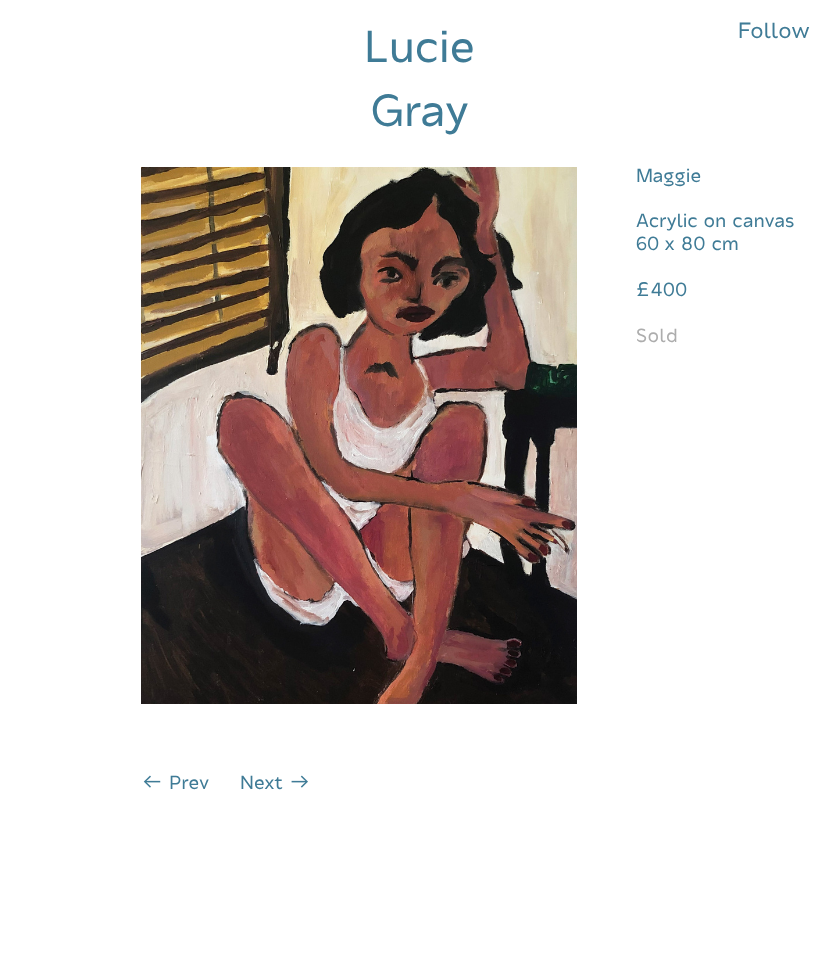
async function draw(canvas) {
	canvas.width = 839;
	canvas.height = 974;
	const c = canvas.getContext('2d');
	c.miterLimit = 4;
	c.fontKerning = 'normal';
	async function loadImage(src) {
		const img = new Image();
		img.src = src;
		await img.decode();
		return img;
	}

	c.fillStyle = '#fff';
	c.fillRect(0, 0, 839, 974);
	c.font = '49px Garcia';
	c.fillStyle = '#3f7b96';
	c.fillText('Lucie', 364, 62);
	c.fillText('Gray', 370, 126);
	c.letterSpacing = '0.25px';
	c.font = '24px Garcia';
	c.fillText('Follow', 738, 38);
	c.drawImage(await loadImage('img1.png'), 141, 167, 436, 537);
	c.letterSpacing = '0px';
	c.font = '20.75px Garcia';
	for (const [text, x, y] of [
		['Maggie', 636, 182],
		['Acrylic on canvas', 636, 227],
		['60 x 80 cm', 636, 250],
		['£400', 636, 296],
	]) {
		c.fillText(text, x, y);
	}
	c.letterSpacing = '0.5px';
	c.fillStyle = '#adadad';
	c.fillText('Sold', 636, 342);
	c.drawImage(await loadImage('img2.png'), 143, 775, 18, 13);
	c.letterSpacing = '0px';
	c.fillStyle = '#3f7b96';
	c.fillText('Prev', 169, 789);
	c.fillText('Next', 240, 789);
	c.drawImage(await loadImage('img3.png'), 291, 775, 17, 13);
}

draw(document.querySelector('canvas'));
